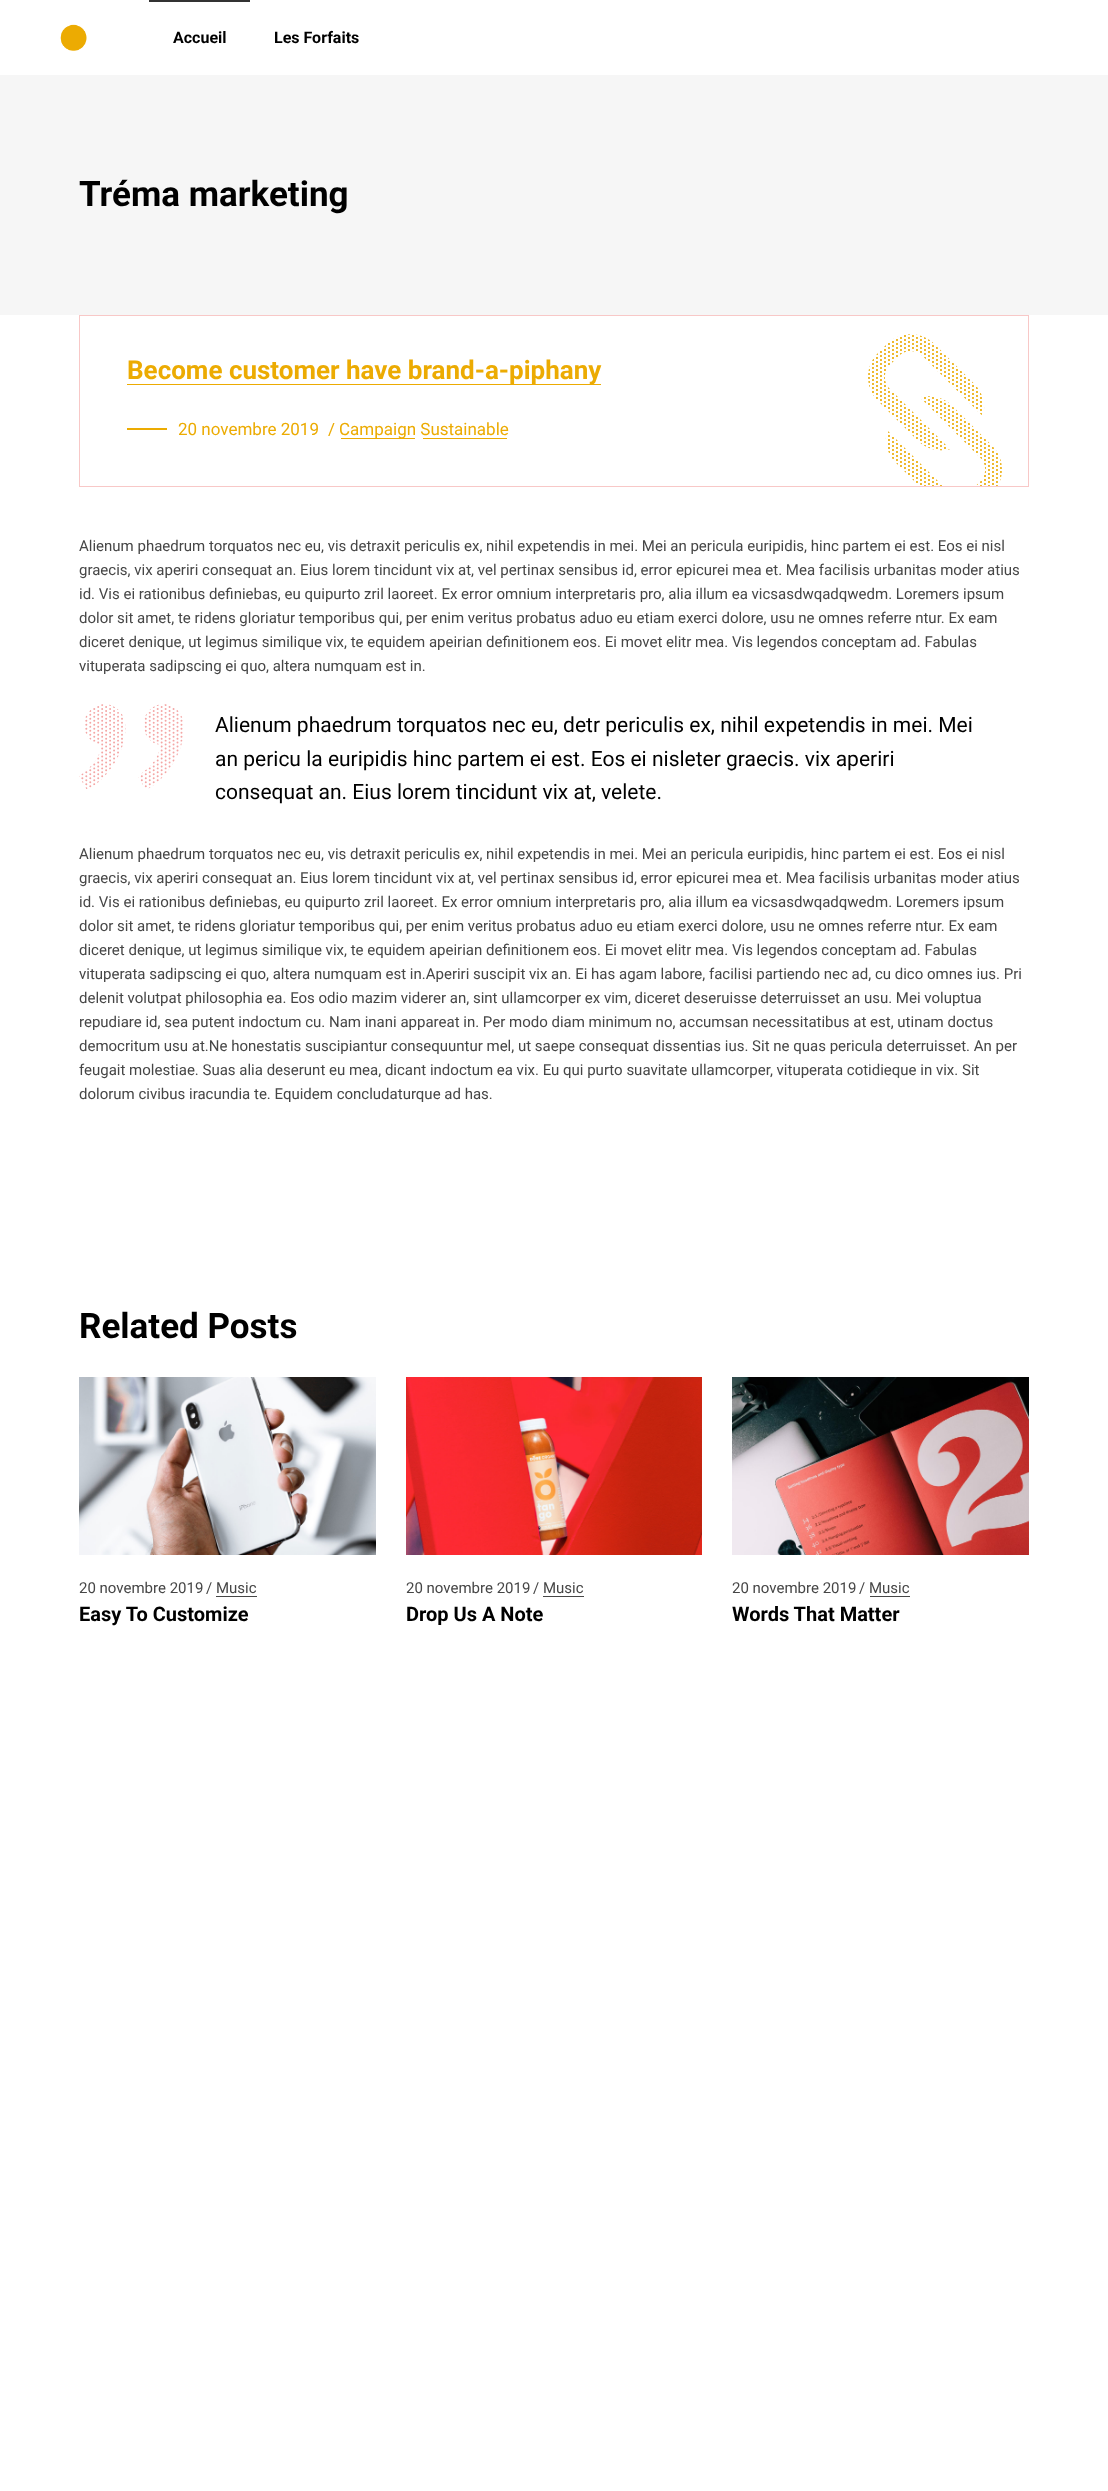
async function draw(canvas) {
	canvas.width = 1108;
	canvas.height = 2491;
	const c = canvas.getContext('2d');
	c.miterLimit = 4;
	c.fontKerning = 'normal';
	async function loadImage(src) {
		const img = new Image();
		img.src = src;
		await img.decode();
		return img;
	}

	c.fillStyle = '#fff';
	c.fillRect(0, 0, 1108, 2491);
	c.drawImage(await loadImage('img1.png'), 60, 24, 27, 27);
	c.fillStyle = '#333';
	c.fillRect(149, 0, 101, 2);
	c.font = 'bold 16px Roboto';
	c.fillStyle = '#000';
	c.fillText('Accueil', 173, 43);
	c.fillText('Les Forfaits', 274, 43);
	c.fillStyle = '#f6f6f6';
	c.fillRect(0, 75, 1108, 240);
	c.font = 'bold 35px Roboto';
	c.fillStyle = '#000';
	c.fillText('Tréma marketing', 79, 206);
	c.strokeStyle = '#f8c8c7';
	c.strokeRect(79.5, 315.5, 949, 171);
	c.fillStyle = '#ecab02';
	c.fillRect(127, 384, 474, 1);
	c.font = 'bold 26px Roboto';
	c.fillText('Become customer have brand-a-piphany', 127, 379);
	c.drawImage(await loadImage('img2.png'), 868, 334, 134, 152);
	c.drawImage(await loadImage('img3.png'), 868, 334, 134, 152);
	c.fillRect(127, 428, 40, 2);
	c.font = '17px Roboto';
	for (const [text, x, y] of [
		['20 novembre 2019', 178, 435],
		['/', 328, 435],
		['Campaign Sustainable', 339, 435],
	]) {
		c.fillText(text, x, y);
	}
	c.fillRect(341, 438, 74, 1);
	c.fillRect(423, 438, 84, 1);
	c.font = '15px Roboto';
	c.fillStyle = '#464646';
	for (const [text, x, y] of [
		['Alienum phaedrum torquatos nec eu, vis detraxit periculis ex, nihil expetendis in mei. Mei an pericula euripidis, hinc partem ei est. Eos ei nisl', 79, 551],
		['graecis, vix aperiri consequat an. Eius lorem tincidunt vix at, vel pertinax sensibus id, error epicurei mea et. Mea facilisis urbanitas moder atius', 79, 575],
		['id. Vis ei rationibus definiebas, eu quipurto zril laoreet. Ex error omnium interpretaris pro, alia illum ea vicsasdwqadqwedm. Loremers ipsum', 79, 599],
		['dolor sit amet, te ridens gloriatur temporibus qui, per enim veritus probatus aduo eu etiam exerci dolore, usu ne omnes referre ntur. Ex eam', 79, 623],
		['diceret denique, ut legimus similique vix, te equidem apeirian definitionem eos. Ei movet elitr mea. Vis legendos conceptam ad. Fabulas', 79, 647],
		['vituperata sadipscing ei quo, altera numquam est in.', 79, 671],
	]) {
		c.fillText(text, x, y);
	}
	c.drawImage(await loadImage('img4.png'), 79, 704, 104, 85);
	c.font = '21px Roboto';
	c.fillStyle = '#000';
	for (const [text, x, y] of [
		['Alienum phaedrum torquatos nec eu, detr periculis ex, nihil expetendis in mei. Mei', 215, 732],
		['an pericu la euripidis hinc partem ei est. Eos ei nisleter graecis. vix aperiri', 215, 766],
		['consequat an. Eius lorem tincidunt vix at, velete.', 215, 799],
	]) {
		c.fillText(text, x, y);
	}
	c.font = '15px Roboto';
	c.fillStyle = '#464646';
	for (const [text, x, y] of [
		['Alienum phaedrum torquatos nec eu, vis detraxit periculis ex, nihil expetendis in mei. Mei an pericula euripidis, hinc partem ei est. Eos ei nisl', 79, 859],
		['graecis, vix aperiri consequat an. Eius lorem tincidunt vix at, vel pertinax sensibus id, error epicurei mea et. Mea facilisis urbanitas moder atius', 79, 883],
		['id. Vis ei rationibus definiebas, eu quipurto zril laoreet. Ex error omnium interpretaris pro, alia illum ea vicsasdwqadqwedm. Loremers ipsum', 79, 907],
		['dolor sit amet, te ridens gloriatur temporibus qui, per enim veritus probatus aduo eu etiam exerci dolore, usu ne omnes referre ntur. Ex eam', 79, 931],
		['diceret denique, ut legimus similique vix, te equidem apeirian definitionem eos. Ei movet elitr mea. Vis legendos conceptam ad. Fabulas', 79, 955],
		['vituperata sadipscing ei quo, altera numquam est in.Aperiri suscipit vix an. Ei has agam labore, facilisi partiendo nec ad, cu dico omnes ius. Pri', 79, 979],
		['delenit volutpat philosophia ea. Eos odio mazim viderer an, sint ullamcorper ex vim, diceret deseruisse deterruisset an usu. Mei voluptua', 79, 1003],
		['repudiare id, sea putent indoctum cu. Nam inani appareat in. Per modo diam minimum no, accumsan necessitatibus at est, utinam doctus', 79, 1027],
		['democritum usu at.Ne honestatis suscipiantur consequuntur mel, ut saepe consequat dissentias ius. Sit ne quas pericula deterruisset. An per', 79, 1051],
		['feugait molestiae. Suas alia deserunt eu mea, dicant indoctum ea vix. Eu qui purto suavitate ullamcorper, vituperata cotidieque in vix. Sit', 79, 1075],
		['dolorum civibus iracundia te. Equidem concludaturque ad has.', 79, 1099],
	]) {
		c.fillText(text, x, y);
	}
	c.font = 'bold 35px Roboto';
	c.fillStyle = '#000';
	c.fillText('Related Posts', 79, 1338);
	c.drawImage(await loadImage('img5.png'), 79, 1377, 297, 178);
	c.font = '15px Roboto';
	c.fillStyle = '#464646';
	c.fillText('20 novembre 2019', 79, 1593);
	c.fillText('/ Music', 206, 1593);
	c.fillRect(216, 1596, 41, 1);
	c.font = 'bold 20px Roboto';
	c.fillStyle = '#000';
	c.fillText('Easy To Customize', 79, 1621);
	c.drawImage(await loadImage('img6.png'), 406, 1377, 296, 178);
	c.font = '15px Roboto';
	c.fillStyle = '#464646';
	c.fillText('20 novembre 2019', 406, 1593);
	c.fillText('/ Music', 533, 1593);
	c.fillRect(543, 1596, 41, 1);
	c.font = 'bold 20px Roboto';
	c.fillStyle = '#000';
	c.fillText('Drop Us A Note', 406, 1621);
	c.drawImage(await loadImage('img7.png'), 732, 1377, 297, 178);
	c.font = '15px Roboto';
	c.fillStyle = '#464646';
	c.fillText('20 novembre 2019', 732, 1593);
	c.fillText('/ Music', 859, 1593);
	c.fillRect(870, 1596, 40, 1);
	c.font = 'bold 20px Roboto';
	c.fillStyle = '#000';
	c.fillText('Words That Matter', 732, 1621);
}

draw(document.querySelector('canvas'));
